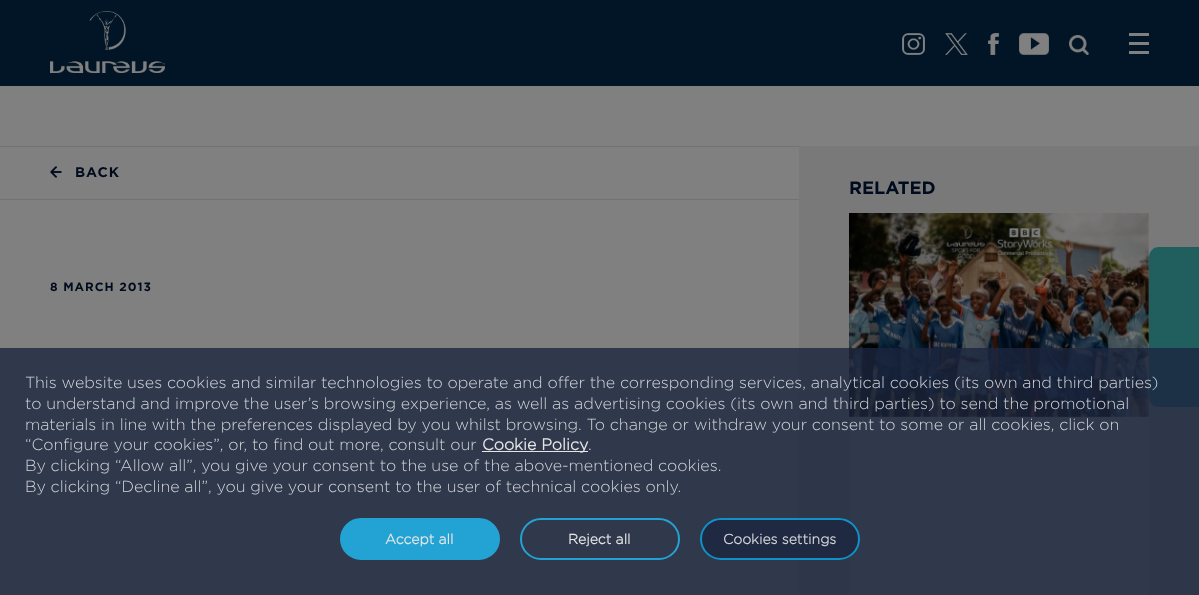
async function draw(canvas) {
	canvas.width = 1199;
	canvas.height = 595;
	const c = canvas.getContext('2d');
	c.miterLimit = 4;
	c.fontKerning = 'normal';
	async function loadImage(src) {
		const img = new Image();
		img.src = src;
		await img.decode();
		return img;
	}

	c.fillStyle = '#808080';
	c.fillRect(0, 0, 1199, 595);
	c.fillStyle = '#011526';
	c.fillRect(0, 0, 1199, 86);
	c.drawImage(await loadImage('img1.png'), 50, 11, 115, 62);
	c.drawImage(await loadImage('img2.png'), 902, 33, 23, 22);
	c.drawImage(await loadImage('img3.png'), 945, 33, 23, 22);
	c.drawImage(await loadImage('img4.png'), 988, 33, 11, 22);
	c.drawImage(await loadImage('img5.png'), 1019, 33, 30, 22);
	c.drawImage(await loadImage('img6.png'), 1069, 35, 20, 20);
	for (const [x, y, w, h, color] of [
		[1129, 33, 20, 3, '#808080'],
		[1129, 42, 20, 3, '#808080'],
		[1129, 51, 20, 3, '#808080'],
		[0, 146, 799, 1, '#727272'],
	]) {
		c.fillStyle = color;
		c.fillRect(x, y, w, h);
	}
	c.drawImage(await loadImage('img7.png'), 50, 166, 12, 12);
	c.letterSpacing = '1px';
	c.font = 'bold 14px Gotham';
	c.fillStyle = '#000b1d';
	c.fillText('BACK', 75, 177);
	c.fillStyle = '#727272';
	c.fillRect(0, 199, 799, 1);
	c.font = 'bold 12px Gotham';
	c.fillStyle = '#000b1d';
	c.fillText('8 MARCH 2013', 50, 291);
	c.fillStyle = '#79797a';
	c.fillRect(799, 146, 400, 449);
	c.letterSpacing = '0px';
	c.font = 'bold 18px Gotham';
	c.fillStyle = '#000b1d';
	c.fillText('RELATED', 849, 194);
	c.fillStyle = '#808080';
	c.fillRect(849, 213, 300, 382);
	c.drawImage(await loadImage('img8.png'), 849, 213, 300, 204);
	c.fillStyle = '#205f5e';
	c.beginPath();
	c.moveTo(1149, 397);
	c.lineTo(1149, 257);
	c.bezierCurveTo(1149, 252, 1153, 247, 1159, 247);
	c.lineTo(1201, 247);
	c.lineTo(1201, 407);
	c.lineTo(1159, 407);
	c.bezierCurveTo(1153, 407, 1149, 403, 1149, 397);
	c.closePath();
	c.fill();
	c.fillStyle = '#1c263fcc';
	c.fillRect(0, 348, 1199, 247);
	c.font = '300 16px Gotham';
	c.fillStyle = '#d2d4d9';
	for (const [text, x, y] of [
		['This website uses cookies and similar technologies to operate and offer the corresponding services, analytical cookies (its own and third parties)', 25, 388],
		['to understand and improve the user’s browsing experience, as well as advertising cookies (its own and third parties) to send the promotional', 25, 409],
		['materials in line with the preferences displayed by you whilst browsing. To change or withdraw your consent to some or all cookies, click on', 25, 430],
		['“Configure your cookies”, or, to find out more, consult our', 25, 450],
	]) {
		c.fillText(text, x, y);
	}
	c.fillStyle = '#e6e6e6';
	c.fillRect(482, 451, 106, 1);
	c.font = 'bold 16px "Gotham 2"';
	c.fillText('Cookie Policy', 482, 450);
	c.font = '300 16px Gotham';
	c.fillText('.', 588, 450);
	c.fillStyle = '#d2d4d9';
	c.fillText('By clicking “Allow all”, you give your consent to the use of the above-mentioned cookies.', 25, 471);
	c.fillText('By clicking “Decline all”, you give your consent to the user of technical cookies only.', 25, 492);
	c.fillStyle = '#23a3d4';
	c.beginPath();
	c.roundRect(341, 519, 158, 40, 20);
	c.fill();
	c.strokeStyle = '#23a3d4';
	c.lineWidth = 2;
	c.stroke();
	c.font = 'bold 14px "Gotham 2"';
	c.fillStyle = '#e6e6e6';
	c.fillText('Accept all', 385, 544);
	c.beginPath();
	c.roundRect(521, 519, 158, 40, 20);
	c.stroke();
	c.fillText('Reject all', 568, 544);
	c.fillStyle = '#202942';
	c.beginPath();
	c.roundRect(700, 518, 160, 42, 21);
	c.fill();
	c.beginPath();
	c.roundRect(701, 519, 158, 40, 20);
	c.strokeStyle = '#0cace9cc';
	c.stroke();
	c.fillStyle = '#d2d4d9';
	c.fillText('Cookies settings', 723, 544);
}

draw(document.querySelector('canvas'));
